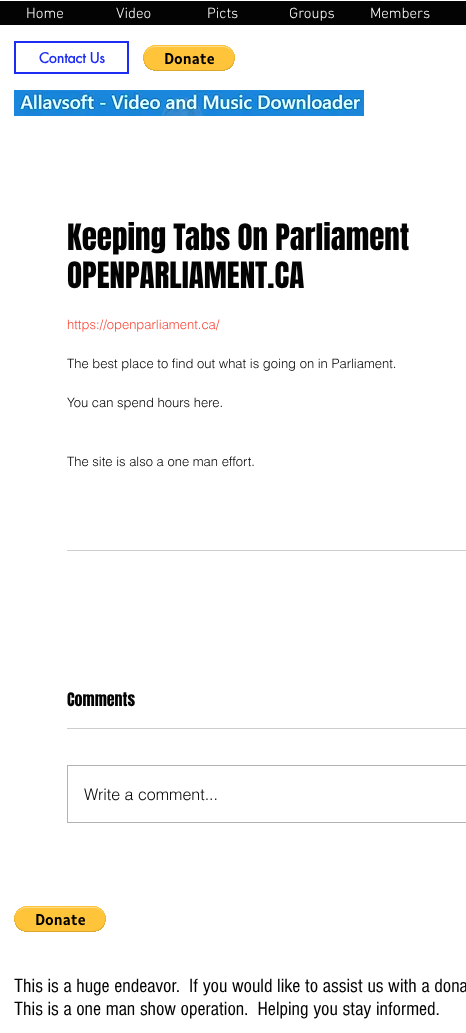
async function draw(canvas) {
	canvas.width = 466;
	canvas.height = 1033;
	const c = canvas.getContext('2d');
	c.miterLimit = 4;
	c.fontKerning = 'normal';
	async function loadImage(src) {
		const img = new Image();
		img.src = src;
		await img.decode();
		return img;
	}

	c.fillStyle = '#fff';
	c.fillRect(0, 0, 466, 1033);
	c.fillStyle = '#030303';
	c.fillRect(0, 1, 466, 24);
	c.font = '300 15px "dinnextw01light"';
	c.fillStyle = '#fff';
	for (const [text, x, y] of [
		['Home', 26, 18],
		['Video', 116, 18],
		['Picts', 207, 18],
		['Groups', 289, 18],
		['Members', 370, 18],
	]) {
		c.fillText(text, x, y);
	}
	c.strokeStyle = '#1d2cf3';
	c.lineWidth = 2;
	c.strokeRect(15, 42, 113, 31);
	c.font = 'bold 14px futura';
	c.fillStyle = '#1d2cf3';
	c.fillText('Contact Us', 39, 63);
	c.drawImage(await loadImage('img1.png'), 143, 45, 92, 26);
	c.drawImage(await loadImage('img2.png'), 14, 90, 350, 26);
	c.font = '31px Anton';
	c.fillStyle = '#030303';
	c.fillText('Keeping Tabs On Parliament', 67, 250);
	c.fillText('OPENPARLIAMENT.CA', 67, 288);
	c.font = '300 13px helvetica';
	c.fillStyle = '#f84738';
	c.fillText('https://openparliament.ca/', 67, 329);
	c.fillStyle = '#030303';
	for (const [text, x, y] of [
		['The best place to find out what is going on in Parliament.', 67, 368],
		['You can spend hours here.', 67, 407],
		['The site is also a one man effort.', 67, 466],
	]) {
		c.fillText(text, x, y);
	}
	c.fillStyle = '#cdcdcd';
	c.fillRect(67, 550, 399, 1);
	c.font = '16px Anton';
	c.fillStyle = '#030303';
	c.fillText('Comments', 67, 706);
	c.fillStyle = '#cdcdcd';
	c.fillRect(67, 728, 399, 1);
	c.strokeStyle = '#b3b3b3';
	c.lineWidth = 1;
	c.strokeRect(67.5, 765.5, 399, 57);
	c.font = '300 16px helvetica';
	c.fillStyle = '#030303';
	c.fillText('Write a comment...', 84, 800);
	c.drawImage(await loadImage('img1.png'), 14, 906, 92, 26);
	c.font = '20px "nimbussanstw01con"';
	c.fillText('This is a huge endeavor.  If you would like to assist us with a dona', 14, 992);
	c.fillText('This is a one man show operation.  Helping you stay informed.', 14, 1015);
}

draw(document.querySelector('canvas'));
